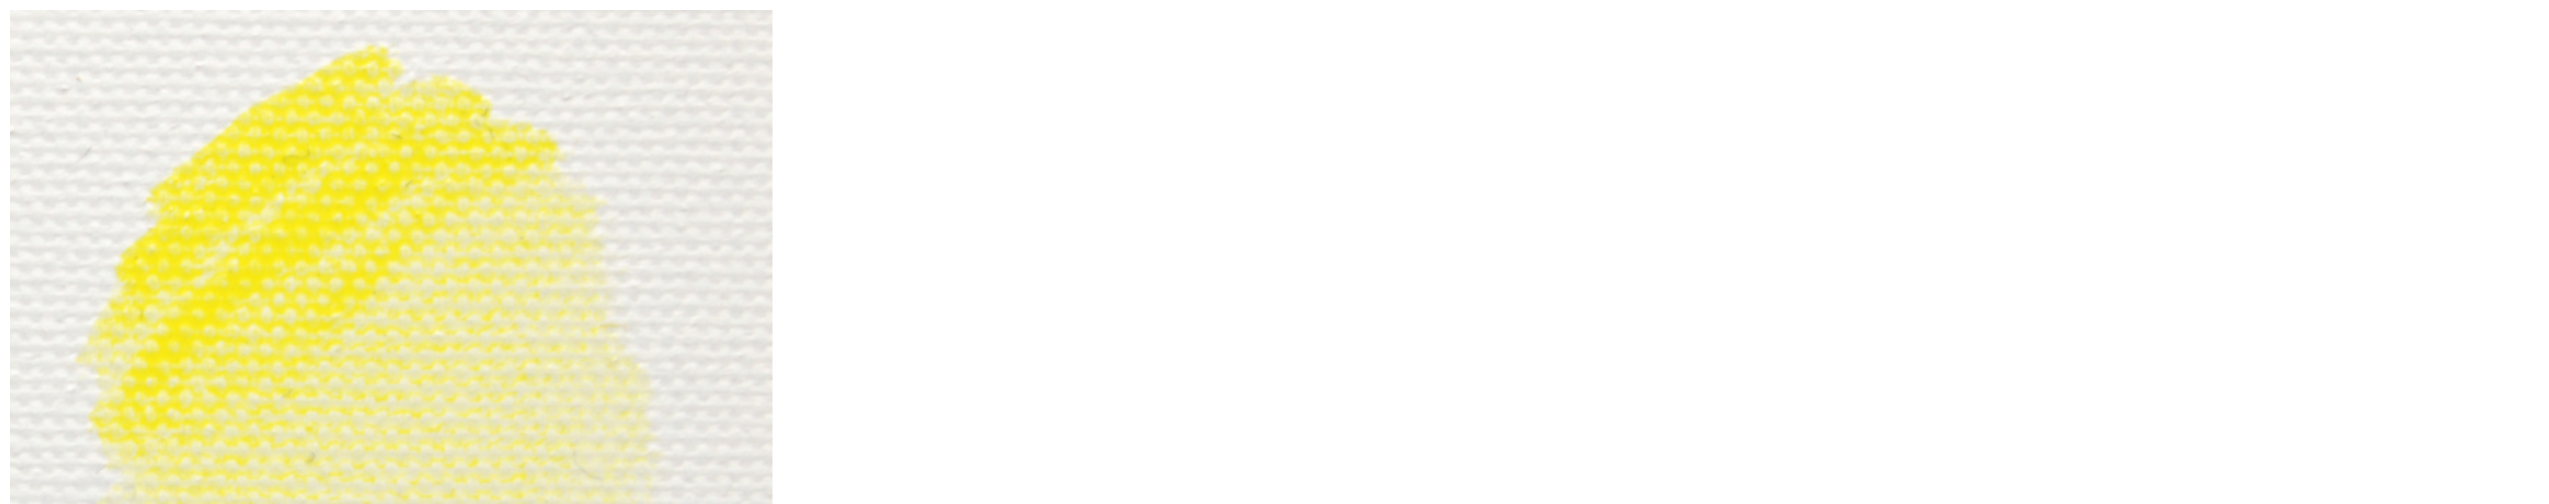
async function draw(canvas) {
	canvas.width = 2549;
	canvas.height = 504;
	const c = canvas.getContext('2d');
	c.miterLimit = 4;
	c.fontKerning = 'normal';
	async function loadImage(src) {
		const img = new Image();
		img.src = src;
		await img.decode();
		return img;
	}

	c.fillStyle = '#fff';
	c.fillRect(0, 0, 2549, 504);
	c.drawImage(await loadImage('img1.png'), 10, 10, 763, 494);
}

draw(document.querySelector('canvas'));
